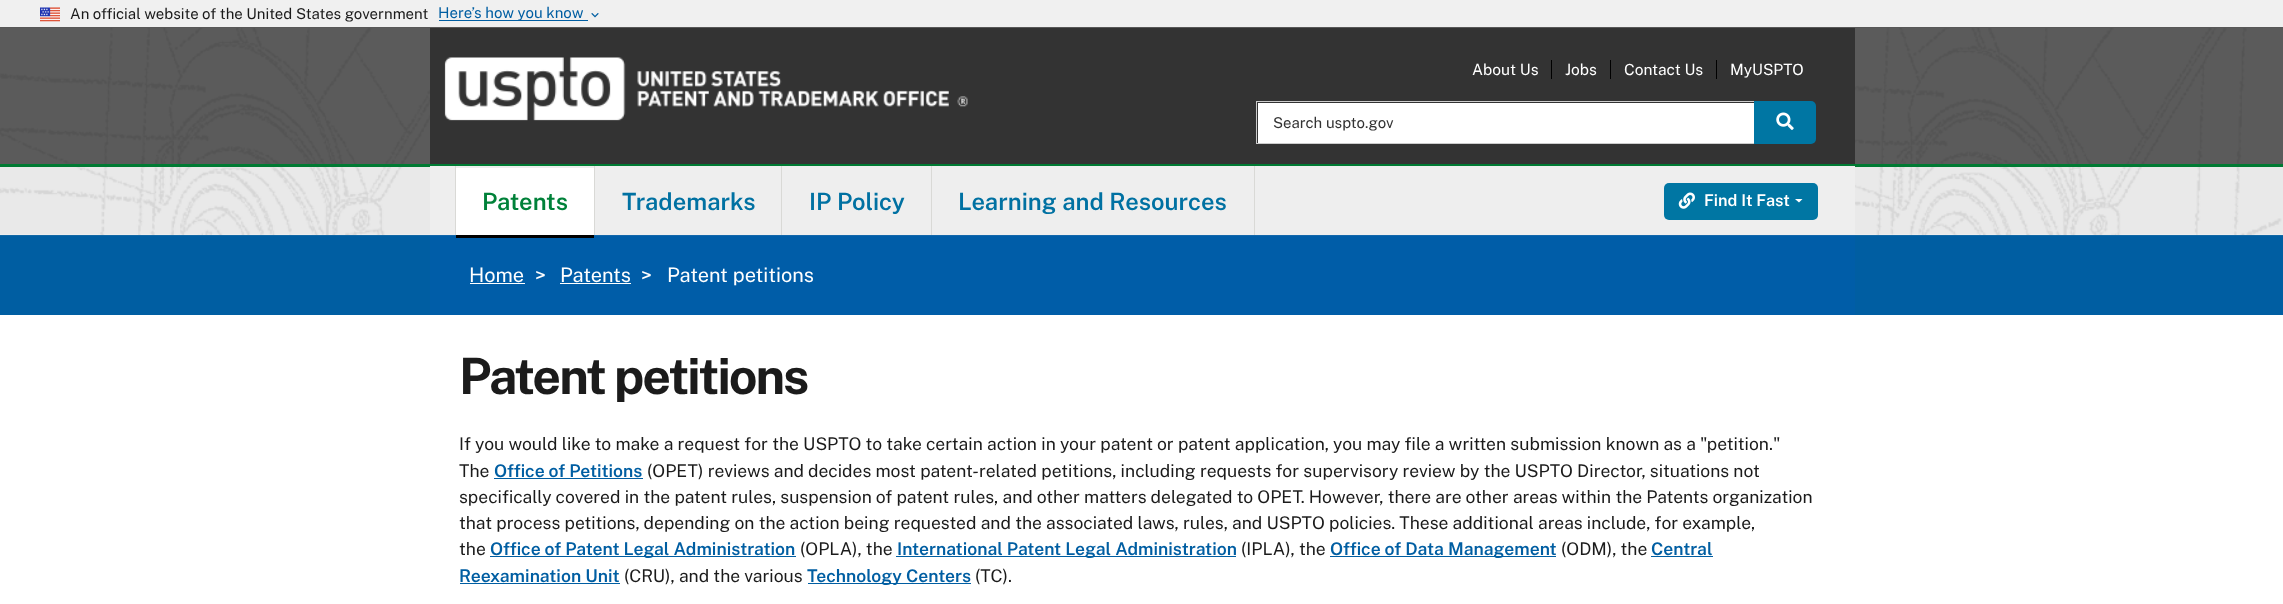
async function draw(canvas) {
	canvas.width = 2283;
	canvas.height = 604;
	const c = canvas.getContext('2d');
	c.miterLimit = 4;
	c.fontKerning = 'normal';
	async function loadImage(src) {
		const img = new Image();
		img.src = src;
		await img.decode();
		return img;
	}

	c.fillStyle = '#fff';
	c.fillRect(0, 0, 2283, 604);
	c.drawImage(await loadImage('img1.png'), 0, 28, 2283, 207);
	c.fillStyle = '#f0f0f0';
	c.fillRect(0, 0, 2283, 28);
	c.drawImage(await loadImage('img2.png'), 40, 7, 20, 15);
	c.font = '15px Public Sans';
	c.fillStyle = '#1b1b1b';
	c.fillText('An official website of the United States government', 70, 19);
	c.fillStyle = '#005ea2';
	c.fillRect(439, 20, 149, 1);
	c.fillText('Here’s how you know', 438, 18);
	c.drawImage(await loadImage('img3.png'), 591, 13, 8, 5);
	c.fillStyle = '#323232cc';
	c.fillRect(0, 27, 2283, 137);
	c.fillStyle = '#333';
	c.fillRect(430, 28, 1425, 136);
	c.drawImage(await loadImage('img4.png'), 444, 57, 524, 64);
	c.font = '15.5px Public Sans';
	c.fillStyle = '#fff';
	c.fillText('About Us', 1472, 75);
	c.fillText('Jobs', 1565, 75);
	c.fillStyle = '#000';
	c.fillRect(1551, 60, 1, 19);
	c.fillStyle = '#fff';
	c.fillText('Contact Us', 1624, 75);
	c.fillStyle = '#000';
	c.fillRect(1610, 60, 1, 19);
	c.fillStyle = '#fff';
	c.fillText('MyUSPTO', 1730, 75);
	c.fillStyle = '#000';
	c.fillRect(1716, 60, 1, 19);
	c.fillStyle = '#fff';
	c.fillRect(1258, 103, 496, 40);
	c.strokeStyle = '#ccc';
	c.strokeRect(1256.5, 101.5, 498, 42);
	c.font = '15px Public Sans';
	c.fillStyle = '#333';
	c.fillText('Search uspto.gov', 1273, 128);
	c.fillStyle = '#0076a3';
	c.beginPath();
	c.roundRect(1754, 101, 62, 43, [0, 5, 5, 0]);
	c.fill();
	c.drawImage(await loadImage('img5.png'), 1776, 112, 18, 18);
	c.fillStyle = '#005ea2';
	c.fillRect(0, 235, 2283, 80);
	c.fillStyle = '#005da8';
	c.fillRect(430, 235, 1425, 80);
	c.drawImage(await loadImage('img6.png'), 0, 167, 2283, 69);
	for (const [x, y, w, h, color] of [
		[0, 164, 2283, 3, '#007a33'],
		[430, 166, 1425, 69, '#eee'],
		[594, 166, 1, 69, '#d9d9d6'],
		[455, 166, 1, 69, '#d9d9d6'],
		[456, 168, 138, 67, '#fff'],
		[456, 235, 138, 3, '#000'],
	]) {
		c.fillStyle = color;
		c.fillRect(x, y, w, h);
	}
	c.font = '600 23.75px Public Sans';
	c.fillStyle = '#008139';
	c.fillText('Patents', 482, 210);
	c.fillStyle = '#d9d9d6';
	c.fillRect(781, 166, 1, 69);
	c.fillStyle = '#0071a2';
	c.fillText('Trademarks', 622, 210);
	c.fillStyle = '#d9d9d6';
	c.fillRect(931, 166, 1, 69);
	c.fillStyle = '#0071a2';
	c.fillText('IP Policy', 809, 210);
	c.fillStyle = '#d9d9d6';
	c.fillRect(1254, 166, 1, 69);
	c.fillStyle = '#0071a2';
	c.fillText('Learning and Resources', 958, 210);
	c.fillStyle = '#0076a3';
	c.beginPath();
	c.roundRect(1664, 183, 154, 37, 5);
	c.fill();
	c.drawImage(await loadImage('img7.png'), 1678, 192, 17, 17);
	c.font = '600 16.25px Public Sans';
	c.fillStyle = '#fff';
	c.fillText('Find It Fast', 1704, 206);
	c.beginPath();
	c.moveTo(1795, 199);
	c.lineTo(1802.5, 199);
	c.lineTo(1799, 202.5);
	c.closePath();
	c.fill();
	c.font = '20px Public Sans';
	c.fillText('Home', 469, 282);
	c.fillRect(470, 283, 55, 1);
	c.fillText('>', 535, 282);
	c.fillText('Patents', 560, 282);
	c.fillRect(560, 283, 71, 1);
	c.fillText('>', 641, 282);
	c.fillText('Patent petitions', 667, 282);
	c.letterSpacing = '-2px';
	c.font = 'bold 50px Public Sans';
	c.fillStyle = '#1b1b1b';
	c.fillText('Patent petitions', 459, 394);
	c.letterSpacing = '0px';
	c.font = '17.5px Public Sans';
	c.fillText('If you would like to make a request for the USPTO to take certain action in your patent or patent application, you may file a written submission known as a "petition."', 459, 450);
	c.fillText('The', 459, 477);
	c.font = '600 17.5px Public Sans';
	c.fillStyle = '#005ea2';
	c.fillText('Office of Petitions', 494, 477);
	c.fillRect(494, 478, 149, 1);
	c.font = '17.5px Public Sans';
	c.fillStyle = '#1b1b1b';
	for (const [text, x, y] of [
		['(OPET) reviews and decides most patent-related petitions, including requests for supervisory review by the USPTO Director, situations not', 647, 477],
		['specifically covered in the patent rules, suspension of patent rules, and other matters delegated to OPET. However, there are other areas within the Patents organization', 459, 503],
		['that process petitions, depending on the action being requested and the associated laws, rules, and USPTO policies. These additional areas include, for example,', 459, 529],
		['the', 459, 555],
	]) {
		c.fillText(text, x, y);
	}
	c.fillStyle = '#005ea2';
	c.fillRect(490, 556, 306, 1);
	c.font = '600 17.5px Public Sans';
	c.fillText('Office of Patent Legal Administration', 490, 555);
	c.font = '17.5px Public Sans';
	c.fillStyle = '#1b1b1b';
	c.fillText('(OPLA), the', 800, 555);
	c.fillStyle = '#005ea2';
	c.fillRect(896, 556, 340, 1);
	c.font = '600 17.5px Public Sans';
	c.fillText('International Patent Legal Administration', 897, 555);
	c.font = '17.5px Public Sans';
	c.fillStyle = '#1b1b1b';
	c.fillText('(IPLA), the', 1241, 555);
	c.fillStyle = '#005ea2';
	c.fillRect(1330, 556, 226, 1);
	c.font = '600 17.5px Public Sans';
	c.fillText('Office of Data Management', 1330, 555);
	c.font = '17.5px Public Sans';
	c.fillStyle = '#1b1b1b';
	c.fillText('(ODM), the', 1561, 555);
	c.font = '600 17.5px Public Sans';
	c.fillStyle = '#005ea2';
	c.fillText('Central', 1651, 555);
	c.fillRect(1651, 556, 62, 1);
	c.fillText('Reexamination Unit', 459, 582);
	c.fillRect(460, 583, 160, 1);
	c.font = '17.5px Public Sans';
	c.fillStyle = '#1b1b1b';
	c.fillText('(CRU), and the various', 624, 582);
	c.fillStyle = '#005ea2';
	c.fillRect(808, 583, 163, 1);
	c.font = '600 17.5px Public Sans';
	c.fillText('Technology Centers', 807, 582);
	c.font = '17.5px Public Sans';
	c.fillStyle = '#1b1b1b';
	c.fillText('(TC).', 975, 582);
}

draw(document.querySelector('canvas'));
